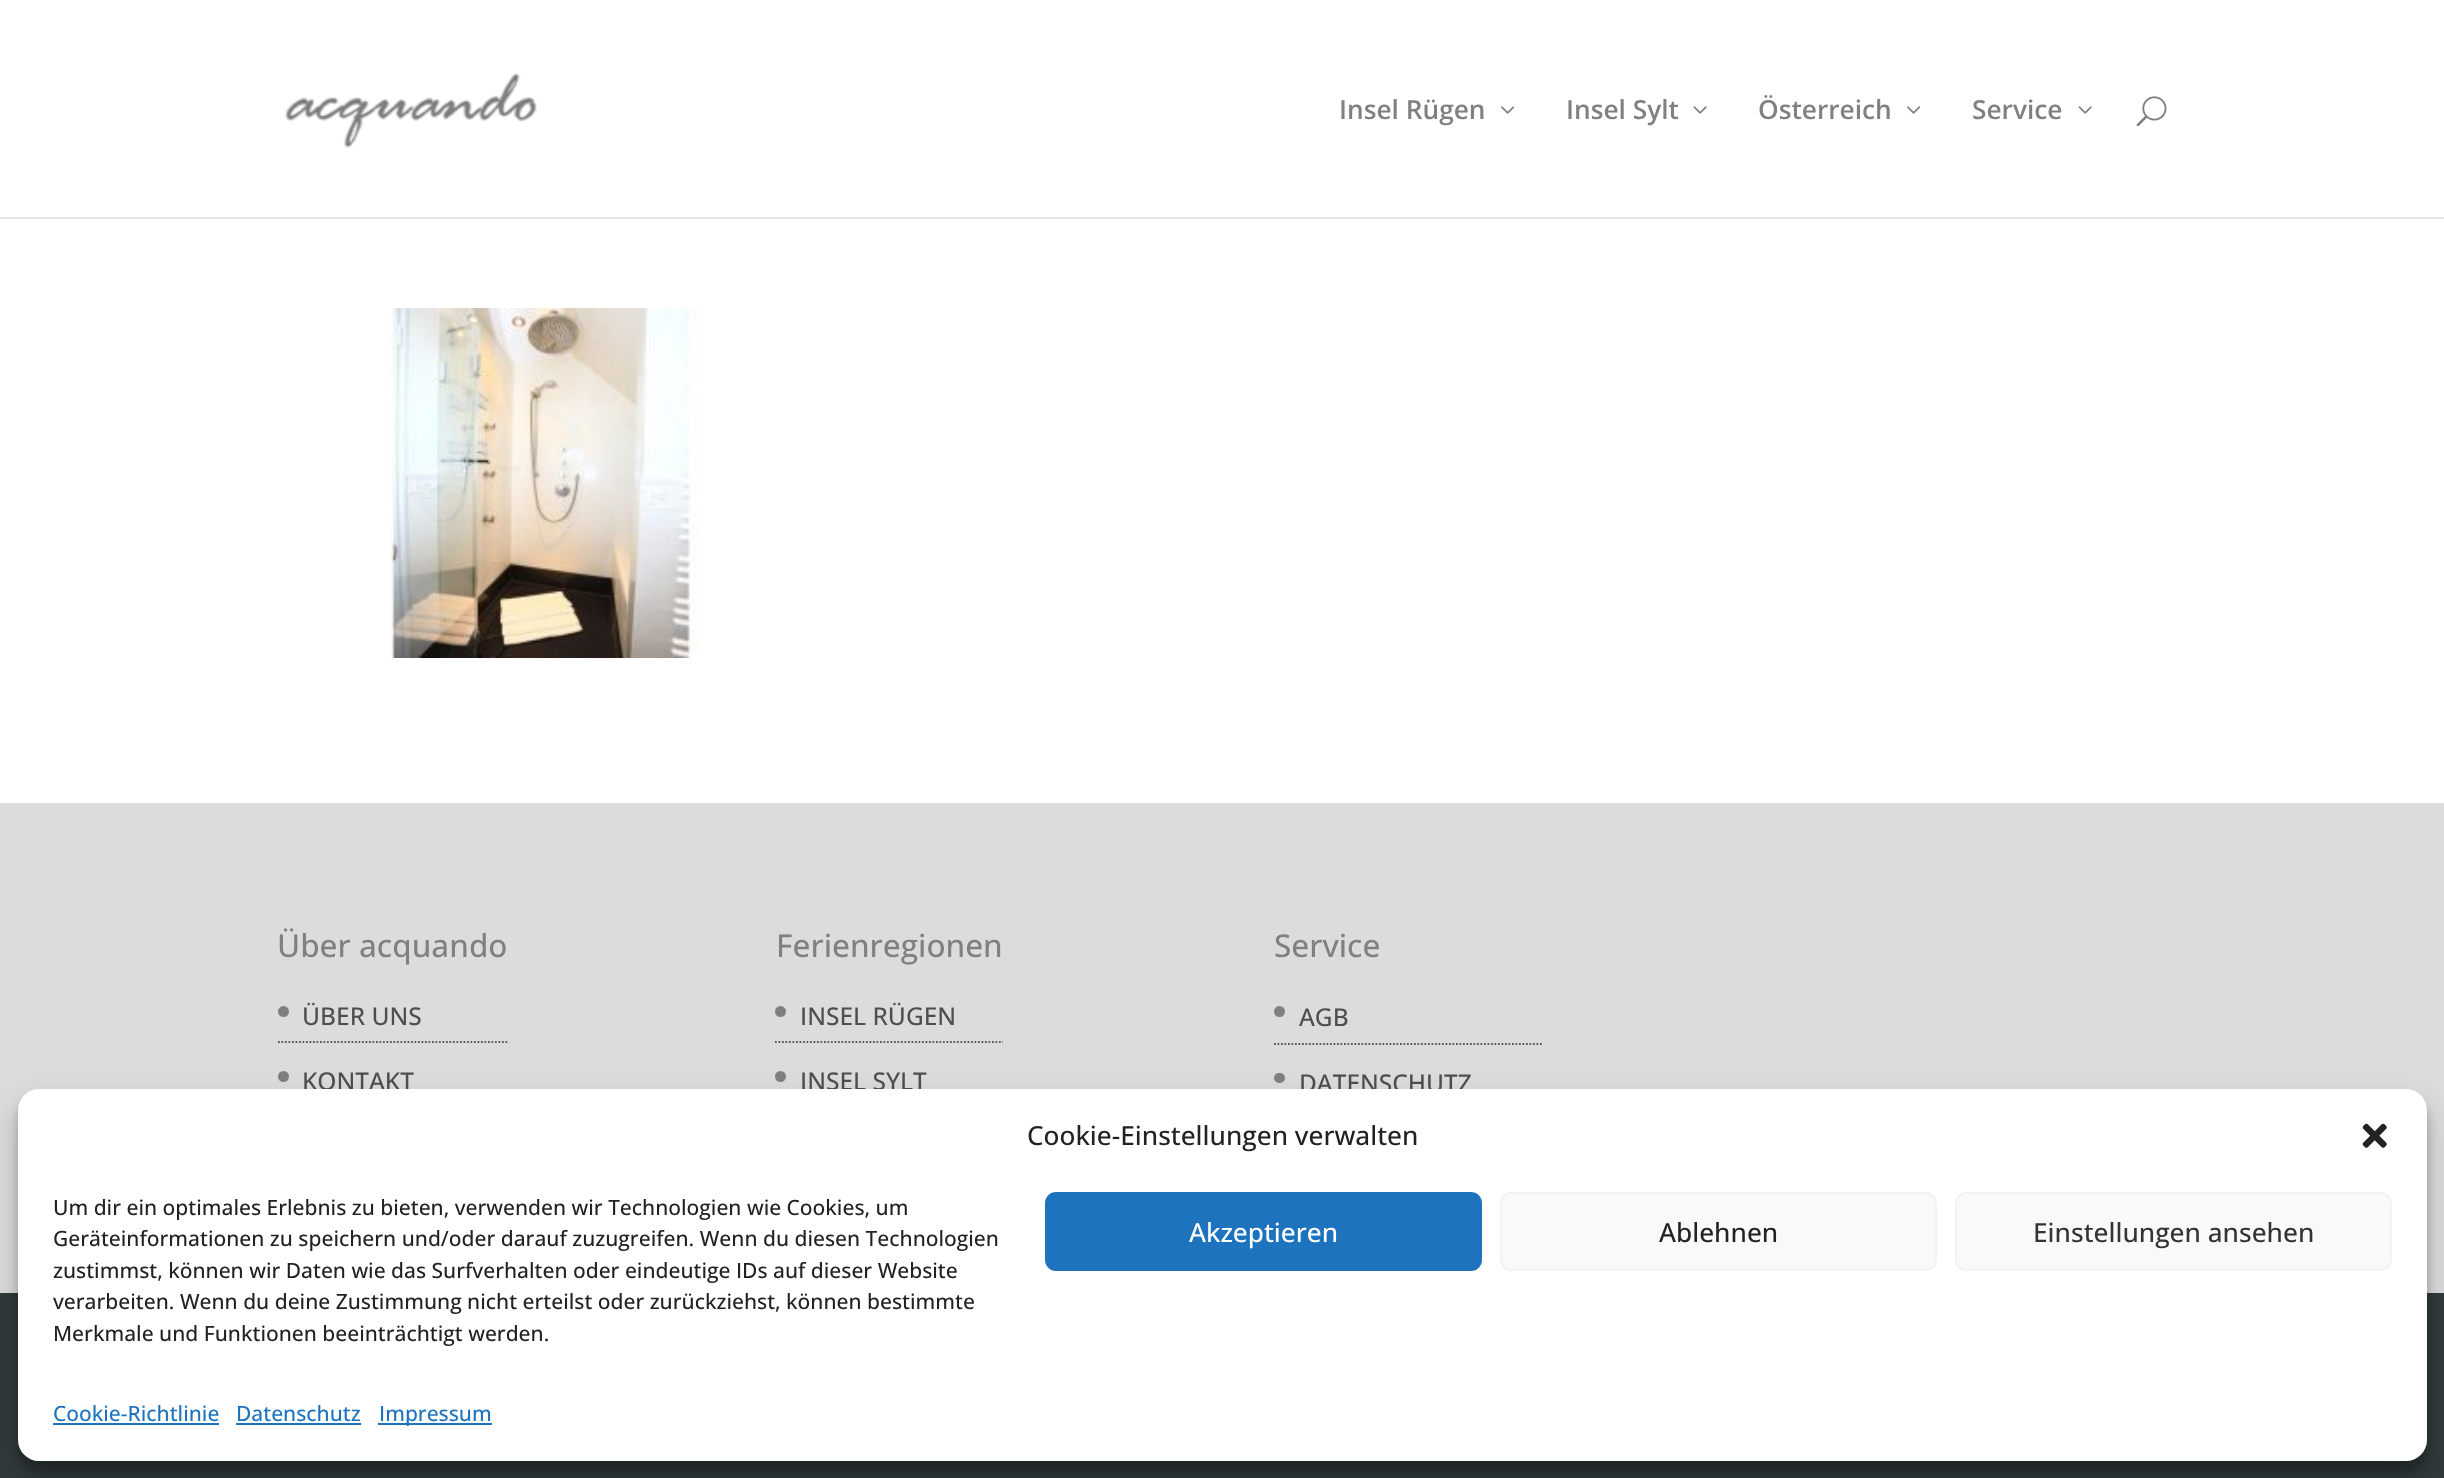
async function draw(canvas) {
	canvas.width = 2444;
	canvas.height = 1478;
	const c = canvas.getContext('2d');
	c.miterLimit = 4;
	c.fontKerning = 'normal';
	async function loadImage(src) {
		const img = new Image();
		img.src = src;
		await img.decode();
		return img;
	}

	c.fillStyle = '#fff';
	c.fillRect(0, 0, 2444, 1478);
	c.fillStyle = '#e6e6e6';
	c.beginPath();
	c.moveTo(0, 217);
	c.lineTo(0, 219);
	c.lineTo(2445, 219);
	c.lineTo(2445, 2);
	c.lineTo(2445, 217);
	c.closePath();
	c.fill();
	c.drawImage(await loadImage('img1.png'), 284, 73, 253, 75);
	c.font = '600 26.25px Open Sans';
	c.fillStyle = '#808080';
	c.fillText('Insel Rügen', 1339, 119);
	c.drawImage(await loadImage('img2.png'), 1501, 106, 14, 8);
	c.fillText('Insel Sylt', 1566, 119);
	c.drawImage(await loadImage('img3.png'), 1693, 106, 14, 8);
	c.fillText('Österreich', 1758, 119);
	c.drawImage(await loadImage('img2.png'), 1907, 106, 14, 8);
	c.fillText('Service', 1972, 119);
	c.drawImage(await loadImage('img3.png'), 2078, 106, 14, 8);
	c.drawImage(await loadImage('img4.png'), 2136, 96, 31, 31);
	c.drawImage(await loadImage('img5.png'), 390, 308, 309, 350);
	c.fillStyle = '#dddcdc';
	c.fillRect(0, 803, 2444, 490);
	c.font = '500 31.5px Open Sans';
	c.fillStyle = '#808080';
	c.fillText('Über acquando', 277, 957);
	c.beginPath();
	c.moveTo(278, 1042);
	c.lineTo(507.5, 1042);
	c.strokeStyle = '#4f5c62';
	c.lineWidth = 1.8;
	c.setLineDash([1.75, 1.75]);
	c.stroke();
	c.beginPath();
	c.arc(283.5, 1011.5, 5.5, 0, 2 * Math.PI);
	c.fill();
	c.font = '500 24.5px Open Sans';
	c.fillStyle = '#4e4e4e';
	c.fillText('ÜBER UNS', 302, 1025);
	c.fillStyle = '#808080';
	c.beginPath();
	c.arc(283.5, 1076.5, 5.5, 0, 2 * Math.PI);
	c.fill();
	c.fillStyle = '#4e4e4e';
	c.fillText('KONTAKT', 302, 1090);
	c.font = '500 31.5px Open Sans';
	c.fillStyle = '#808080';
	c.fillText('Ferienregionen', 776, 957);
	c.beginPath();
	c.moveTo(775, 1042);
	c.lineTo(1003, 1042);
	c.stroke();
	c.beginPath();
	c.arc(780.5, 1011.5, 5.5, 0, 2 * Math.PI);
	c.fill();
	c.font = '500 24.5px Open Sans';
	c.fillStyle = '#4e4e4e';
	c.fillText('INSEL RÜGEN', 800, 1025);
	c.fillStyle = '#808080';
	c.beginPath();
	c.arc(780.5, 1076.5, 5.5, 0, 2 * Math.PI);
	c.fill();
	c.fillStyle = '#4e4e4e';
	c.fillText('INSEL SYLT', 800, 1090);
	c.font = '500 31.5px Open Sans';
	c.fillStyle = '#808080';
	c.fillText('Service', 1274, 957);
	c.beginPath();
	c.moveTo(1274, 1044);
	c.lineTo(1543.5, 1044);
	c.stroke();
	c.beginPath();
	c.arc(1279.5, 1011.5, 5.5, 0, 2 * Math.PI);
	c.fill();
	c.font = '500 24.5px Open Sans';
	c.fillStyle = '#4e4e4e';
	c.fillText('AGB', 1299, 1026);
	c.fillStyle = '#808080';
	c.beginPath();
	c.roundRect(1274, 1073, 11, 10, 5);
	c.fill();
	c.fillStyle = '#4e4e4e';
	c.fillText('DATENSCHUTZ', 1299, 1092);
	c.fillStyle = '#323a3d';
	c.fillRect(0, 1293, 2444, 185);
	c.fillStyle = '#0000003b';
	c.filter = 'blur(5px)';
	c.beginPath();
	c.roundRect(18, 1099, 2409, 373, 21);
	c.fill();
	c.filter = 'none';
	c.fillStyle = '#00000030';
	c.filter = 'blur(17.5px)';
	c.beginPath();
	c.roundRect(18, 1106, 2409, 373, 21);
	c.fill();
	c.filter = 'none';
	c.fillStyle = '#fff';
	c.beginPath();
	c.roundRect(18, 1089, 2409, 372, 21);
	c.fill();
	c.font = '500 26.25px Open Sans';
	c.fillStyle = '#222';
	c.fillText('Cookie-Einstellungen verwalten', 1027, 1145);
	c.drawImage(await loadImage('img6.png'), 2362, 1123, 25, 25);
	c.font = '500 21px Open Sans';
	for (const [text, x, y] of [
		['Um dir ein optimales Erlebnis zu bieten, verwenden wir Technologien wie Cookies, um', 53, 1215],
		['Geräteinformationen zu speichern und/oder darauf zuzugreifen. Wenn du diesen Technologien', 53, 1246],
		['zustimmst, können wir Daten wie das Surfverhalten oder eindeutige IDs auf dieser Website', 53, 1278],
		['verarbeiten. Wenn du deine Zustimmung nicht erteilst oder zurückziehst, können bestimmte', 53, 1309],
		['Merkmale und Funktionen beeinträchtigt werden.', 53, 1341],
	]) {
		c.fillText(text, x, y);
	}
	c.fillStyle = '#1e73be';
	c.beginPath();
	c.roundRect(1046, 1193, 435, 77, 10);
	c.fill();
	c.strokeStyle = '#1e73be';
	c.lineWidth = 2;
	c.setLineDash([]);
	c.stroke();
	c.font = '500 26.25px Open Sans';
	c.fillStyle = '#fff';
	c.fillText('Akzeptieren', 1189, 1242);
	c.fillStyle = '#f9f9f9';
	c.beginPath();
	c.roundRect(1501, 1193, 435, 77, 10);
	c.fill();
	c.strokeStyle = '#f2f2f2';
	c.stroke();
	c.fillStyle = '#222';
	c.fillText('Ablehnen', 1659, 1242);
	c.fillStyle = '#f9f9f9';
	c.beginPath();
	c.roundRect(1956, 1193, 435, 77, 10);
	c.fill();
	c.stroke();
	c.fillStyle = '#333';
	c.fillText('Einstellungen ansehen', 2033, 1242);
	c.font = '500 21px Open Sans';
	c.fillStyle = '#1e73be';
	c.fillText('Cookie-Richtlinie', 53, 1421);
	c.fillRect(53, 1423, 166, 2);
	c.fillText('Datenschutz', 236, 1421);
	c.fillRect(236, 1423, 125, 2);
	c.fillRect(378, 1423, 114, 2);
	c.fillText('Impressum', 379, 1421);
}

draw(document.querySelector('canvas'));
